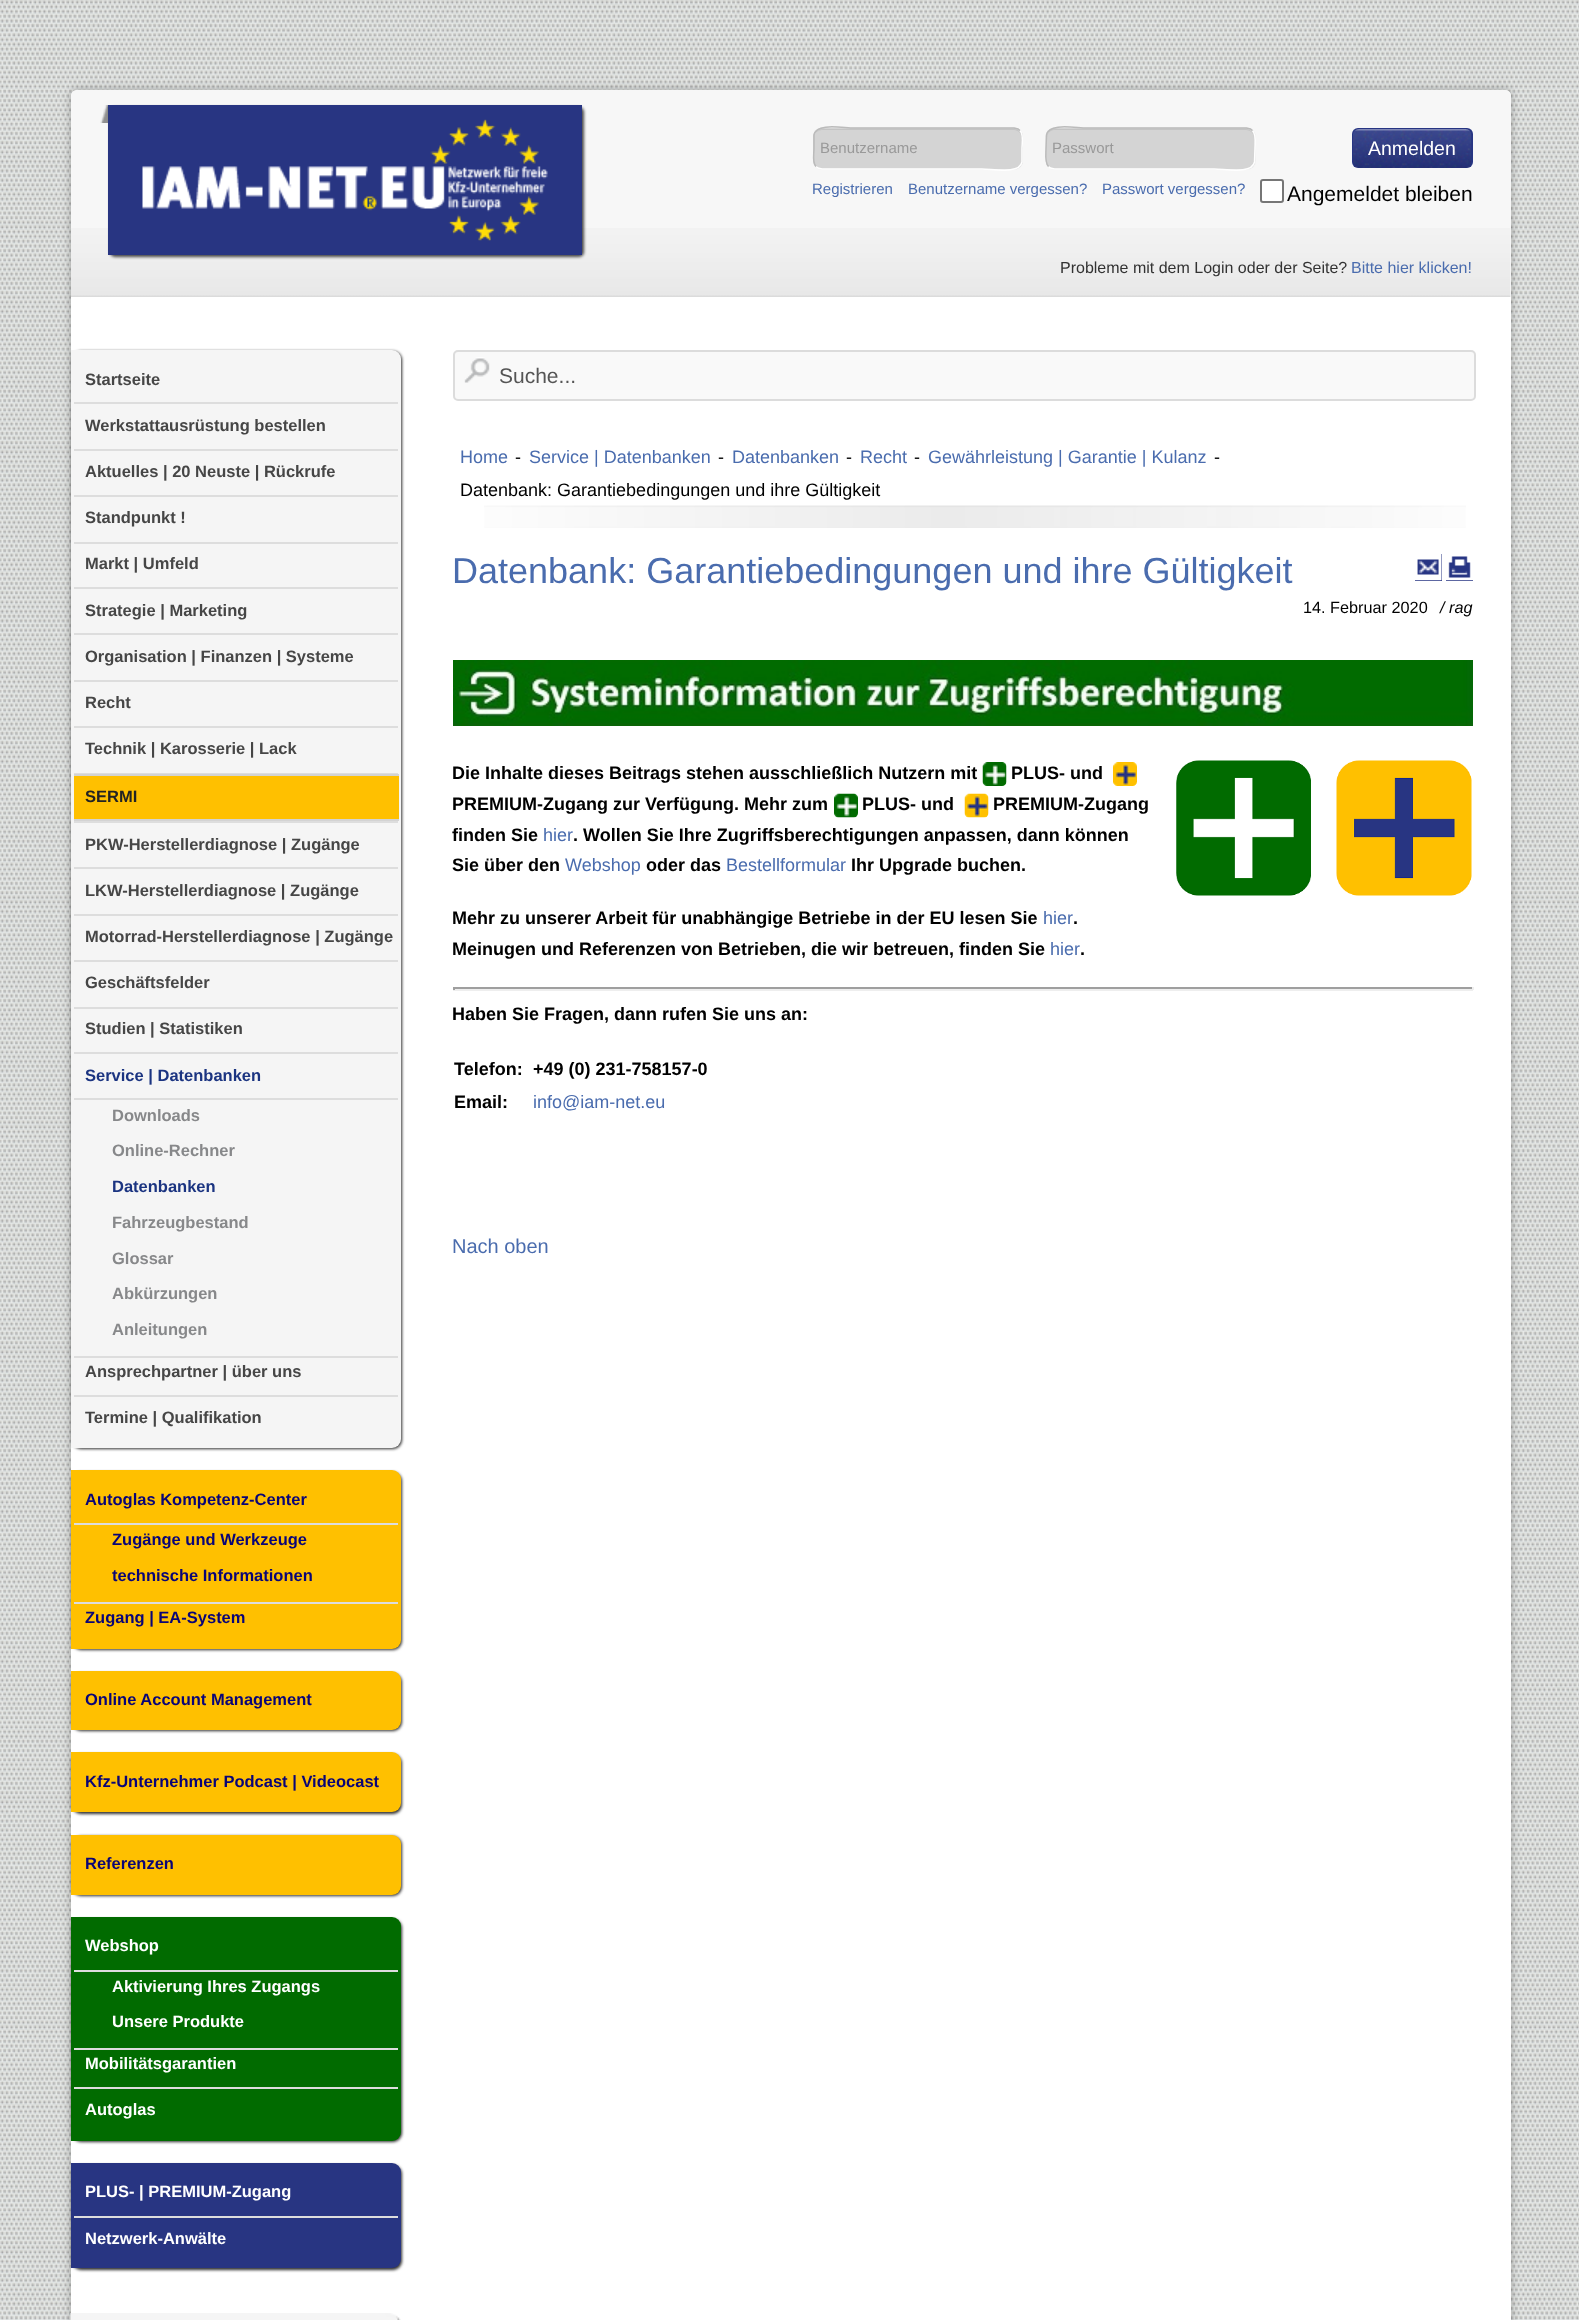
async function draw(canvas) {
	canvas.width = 1579;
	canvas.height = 2320;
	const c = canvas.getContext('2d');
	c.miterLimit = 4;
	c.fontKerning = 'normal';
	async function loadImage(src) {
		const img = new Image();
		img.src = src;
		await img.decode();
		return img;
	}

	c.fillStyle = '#fff';
	c.fillRect(0, 0, 1579, 2320);
	c.drawImage(await loadImage('img1.png'), 0, 0, 1579, 2320);
	c.fillStyle = '#0000004d';
	c.filter = 'blur(4px)';
	c.beginPath();
	c.roundRect(71, 90, 1440, 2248, 6);
	c.fill();
	c.filter = 'none';
	c.fillStyle = '#fff';
	c.beginPath();
	c.roundRect(71, 90, 1440, 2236, 6);
	c.fill();
	c.fillStyle = '#f7f7f7';
	c.beginPath();
	c.roundRect(71, 90, 1440, 207, [6, 6, 0, 0]);
	c.fill();
	c.drawImage(await loadImage('img2.png'), 70, 228, 1441, 69);
	c.fillStyle = '#000000b3';
	c.filter = 'blur(1.5px)';
	c.beginPath();
	c.roundRect(110, 107, 474, 150, 5);
	c.fill();
	c.filter = 'none';
	c.drawImage(await loadImage('img3.png'), 100, 105, 8, 18);
	c.drawImage(await loadImage('img4.png'), 108, 105, 474, 150);
	c.fillStyle = '#f0f0f0';
	c.beginPath();
	c.roundRect(813, 128, 210, 42, 9);
	c.fill();
	c.drawImage(await loadImage('img5.png'), 813, 127, 210, 43);
	c.fillStyle = '#c4c4c4';
	c.beginPath();
	c.moveTo(822, 130);
	c.lineTo(1014, 130);
	c.bezierCurveTo(1018, 130, 1022, 134, 1022, 138);
	c.lineTo(1022, 137);
	c.bezierCurveTo(1022, 133, 1018, 129, 1014, 129);
	c.lineTo(823, 129);
	c.bezierCurveTo(820, 129, 818, 131, 816, 133);
	c.bezierCurveTo(818, 131, 820, 130, 822, 130);
	c.closePath();
	c.fill();
	c.beginPath();
	c.moveTo(1020, 130.5);
	c.bezierCurveTo(1024, 134.5, 1022, 143.5, 1022, 148.5);
	c.lineTo(1022, 162);
	c.bezierCurveTo(1019.5, 174.5, 993.5, 169, 982, 169);
	c.lineTo(822, 169);
	c.lineTo(818, 168);
	c.lineTo(816, 166.5);
	c.strokeStyle = '#fff';
	c.lineWidth = 1.5;
	c.stroke();
	c.beginPath();
	c.moveTo(816, 166.5);
	c.bezierCurveTo(812, 162.5, 814, 153.5, 814, 148.5);
	c.lineTo(814, 135);
	c.bezierCurveTo(816.5, 122.5, 842.5, 128, 854, 128);
	c.lineTo(1014, 128);
	c.lineTo(1018, 129);
	c.lineTo(1020, 130.5);
	c.strokeStyle = '#bbb';
	c.stroke();
	c.font = '15px Liberation Sans';
	c.fillStyle = '#999';
	c.fillText('Benutzername', 820, 153);
	c.fillStyle = '#f0f0f0';
	c.beginPath();
	c.roundRect(1046, 128, 210, 42, 9);
	c.fill();
	c.drawImage(await loadImage('img6.png'), 1045, 127, 211, 43);
	c.fillStyle = '#c4c4c4';
	c.beginPath();
	c.moveTo(1054, 130);
	c.lineTo(1246, 130);
	c.bezierCurveTo(1251, 130, 1254, 134, 1254, 138);
	c.lineTo(1254, 137);
	c.bezierCurveTo(1254, 133, 1250, 129, 1246, 129);
	c.lineTo(1055, 129);
	c.bezierCurveTo(1051, 129, 1047, 133, 1047, 137);
	c.lineTo(1047, 138);
	c.bezierCurveTo(1047, 134, 1050, 130, 1054, 130);
	c.closePath();
	c.fill();
	c.beginPath();
	c.moveTo(1252.5, 130.5);
	c.bezierCurveTo(1256.5, 134.5, 1255, 143.5, 1255, 148.5);
	c.lineTo(1254.5, 162);
	c.bezierCurveTo(1252, 174.5, 1226, 169, 1214.5, 169);
	c.lineTo(1054.5, 169);
	c.lineTo(1050.5, 168);
	c.lineTo(1048.5, 166.5);
	c.strokeStyle = '#fff';
	c.stroke();
	c.beginPath();
	c.moveTo(1048.5, 166.5);
	c.bezierCurveTo(1044.5, 162.5, 1046, 153.5, 1046, 148.5);
	c.lineTo(1046.5, 135);
	c.bezierCurveTo(1049, 122.5, 1075, 128, 1086.5, 128);
	c.lineTo(1246.5, 128);
	c.lineTo(1250.5, 129);
	c.lineTo(1252.5, 130.5);
	c.strokeStyle = '#bbb';
	c.stroke();
	c.fillStyle = '#999';
	c.fillText('Passwort', 1052, 153);
	c.fillStyle = '#273583';
	c.beginPath();
	c.roundRect(1352, 128, 121, 40, 6);
	c.fill();
	c.drawImage(await loadImage('img7.png'), 1353, 129, 119, 39);
	c.font = '19.5px Liberation Sans';
	c.fillStyle = '#fff';
	c.fillText('Anmelden', 1368, 155);
	c.font = '15px Liberation Sans';
	c.fillStyle = '#4a6cae';
	for (const [text, x, y] of [
		['Registrieren', 812, 194],
		['Benutzername vergessen?', 908, 194],
		['Passwort vergessen?', 1102, 194],
	]) {
		c.fillText(text, x, y);
	}
	c.fillStyle = '#fff';
	c.beginPath();
	c.roundRect(1261, 180, 22, 22, 2);
	c.fill();
	c.strokeStyle = '#767676';
	c.lineWidth = 2;
	c.stroke();
	c.font = '21px Liberation Sans';
	c.fillStyle = '#000';
	c.fillText('Angemeldet bleiben', 1287, 201);
	c.font = '16px Liberation Sans';
	c.fillStyle = '#333';
	c.fillText('Probleme mit dem Login oder der Seite?', 1060, 273);
	c.fillStyle = '#4a6cae';
	c.fillText('Bitte hier klicken!', 1351, 273);
	c.fillStyle = '#2f2f2f';
	c.filter = 'blur(1.5px)';
	c.beginPath();
	c.roundRect(72, 351, 330, 1098, 9);
	c.fill();
	c.filter = 'none';
	c.fillStyle = '#f5f5f5';
	c.beginPath();
	c.roundRect(71, 350, 330, 1098, [0, 9, 9, 0]);
	c.fill();
	c.fillStyle = '#ddd';
	c.fillRect(74, 402, 324, 2);
	c.font = 'bold 16.5px Liberation Sans';
	c.fillStyle = '#464646';
	c.fillText('Startseite', 85, 385);
	c.fillStyle = '#ddd';
	c.fillRect(74, 449, 324, 2);
	c.fillStyle = '#464646';
	c.fillText('Werkstattausrüstung bestellen', 85, 431);
	c.fillStyle = '#ddd';
	c.fillRect(74, 495, 324, 2);
	c.fillStyle = '#464646';
	c.fillText('Aktuelles | 20 Neuste | Rückrufe', 85, 477);
	c.fillStyle = '#ddd';
	c.fillRect(74, 542, 324, 2);
	c.fillStyle = '#464646';
	c.fillText('Standpunkt !', 85, 523);
	c.fillStyle = '#ddd';
	c.fillRect(74, 587, 324, 2);
	c.fillStyle = '#464646';
	c.fillText('Markt | Umfeld', 85, 569);
	c.fillStyle = '#ddd';
	c.fillRect(74, 633, 324, 2);
	c.fillStyle = '#464646';
	c.fillText('Strategie | Marketing', 85, 616);
	c.fillStyle = '#ddd';
	c.fillRect(74, 680, 324, 2);
	c.fillStyle = '#464646';
	c.fillText('Organisation | Finanzen | Systeme', 85, 662);
	c.fillStyle = '#ddd';
	c.fillRect(74, 726, 324, 2);
	c.fillStyle = '#464646';
	c.fillText('Recht', 85, 708);
	c.fillStyle = '#ddd';
	c.fillRect(74, 773, 324, 1);
	c.fillStyle = '#464646';
	c.fillText('Technik | Karosserie | Lack', 85, 754);
	for (const [x, y, w, h, color] of [
		[74, 821, 324, 2, '#ddd'],
		[74, 776, 325, 43, '#ffc000'],
		[74, 774, 325, 2, '#d3d3d3'],
		[74, 819, 325, 2, '#d3d3d3'],
	]) {
		c.fillStyle = color;
		c.fillRect(x, y, w, h);
	}
	c.fillStyle = '#232323';
	c.fillText('SERMI', 85, 802);
	c.fillStyle = '#ddd';
	c.fillRect(74, 867, 324, 2);
	c.fillStyle = '#464646';
	c.fillText('PKW-Herstellerdiagnose | Zugänge', 85, 850);
	c.fillStyle = '#ddd';
	c.fillRect(74, 914, 324, 2);
	c.fillStyle = '#464646';
	c.fillText('LKW-Herstellerdiagnose | Zugänge', 85, 896);
	c.fillStyle = '#ddd';
	c.fillRect(74, 960, 324, 2);
	c.fillStyle = '#464646';
	c.fillText('Motorrad-Herstellerdiagnose | Zugänge', 85, 942);
	c.fillStyle = '#ddd';
	c.fillRect(74, 1007, 324, 2);
	c.fillStyle = '#464646';
	c.fillText('Geschäftsfelder', 85, 988);
	c.fillStyle = '#ddd';
	c.fillRect(74, 1052, 324, 2);
	c.fillStyle = '#464646';
	c.fillText('Studien | Statistiken', 85, 1034);
	c.fillStyle = '#ddd';
	c.fillRect(74, 1098, 324, 2);
	c.fillStyle = '#1b3481';
	c.fillText('Service | Datenbanken', 85, 1081);
	c.fillStyle = '#ddd';
	c.fillRect(74, 1356, 324, 2);
	c.fillStyle = '#87888a';
	c.fillText('Downloads', 112, 1121);
	c.fillText('Online-Rechner', 112, 1156);
	c.fillStyle = '#1b3481';
	c.fillText('Datenbanken', 112, 1192);
	c.fillStyle = '#87888a';
	for (const [text, x, y] of [
		['Fahrzeugbestand', 112, 1228],
		['Glossar', 112, 1264],
		['Abkürzungen', 112, 1299],
		['Anleitungen', 112, 1335],
	]) {
		c.fillText(text, x, y);
	}
	c.fillStyle = '#ddd';
	c.fillRect(74, 1395, 324, 2);
	c.fillStyle = '#464646';
	c.fillText('Ansprechpartner | über uns', 85, 1377);
	c.fillText('Termine | Qualifikation', 85, 1423);
	c.fillStyle = '#2f2f2f';
	c.filter = 'blur(1.5px)';
	c.beginPath();
	c.roundRect(72, 1472, 330, 178, 9);
	c.fill();
	c.filter = 'none';
	c.fillStyle = '#ffc000';
	c.beginPath();
	c.roundRect(71, 1470, 330, 179, [0, 9, 9, 0]);
	c.fill();
	c.fillStyle = '#ddd';
	c.fillRect(74, 1523, 324, 2);
	c.fillStyle = '#090477';
	c.fillText('Autoglas Kompetenz-Center', 85, 1505);
	c.fillStyle = '#ddd';
	c.fillRect(74, 1602, 324, 2);
	c.fillStyle = '#090477';
	for (const [text, x, y] of [
		['Zugänge und Werkzeuge', 112, 1545],
		['technische Informationen', 112, 1581],
		['Zugang | EA-System', 85, 1623],
	]) {
		c.fillText(text, x, y);
	}
	c.fillStyle = '#2f2f2f';
	c.filter = 'blur(1.5px)';
	c.beginPath();
	c.roundRect(72, 1673, 330, 58, 9);
	c.fill();
	c.filter = 'none';
	c.fillStyle = '#ffc000';
	c.beginPath();
	c.roundRect(71, 1671, 330, 59, [0, 9, 9, 0]);
	c.fill();
	c.fillStyle = '#090477';
	c.fillText('Online Account Management', 85, 1705);
	c.fillStyle = '#2f2f2f';
	c.filter = 'blur(1.5px)';
	c.beginPath();
	c.roundRect(72, 1754, 330, 60, 9);
	c.fill();
	c.filter = 'none';
	c.fillStyle = '#ffc000';
	c.beginPath();
	c.roundRect(71, 1752, 330, 60, [0, 9, 9, 0]);
	c.fill();
	c.fillStyle = '#090477';
	c.fillText('Kfz-Unternehmer Podcast | Videocast', 85, 1787);
	c.fillStyle = '#2f2f2f';
	c.filter = 'blur(1.5px)';
	c.beginPath();
	c.roundRect(72, 1836, 330, 60, 9);
	c.fill();
	c.filter = 'none';
	c.fillStyle = '#ffc000';
	c.beginPath();
	c.roundRect(71, 1835, 330, 60, [0, 9, 9, 0]);
	c.fill();
	c.fillStyle = '#090477';
	c.fillText('Referenzen', 85, 1869);
	c.fillStyle = '#2f2f2f';
	c.filter = 'blur(1.5px)';
	c.beginPath();
	c.roundRect(72, 1919, 330, 223, 9);
	c.fill();
	c.filter = 'none';
	c.fillStyle = '#016b00';
	c.beginPath();
	c.roundRect(71, 1917, 330, 224, [0, 9, 9, 0]);
	c.fill();
	c.fillStyle = '#ddd';
	c.fillRect(74, 1970, 324, 2);
	c.fillStyle = '#fff';
	c.fillText('Webshop', 85, 1951);
	c.fillStyle = '#ddd';
	c.fillRect(74, 2048, 324, 2);
	c.fillStyle = '#fff';
	c.fillText('Aktivierung Ihres Zugangs', 112, 1992);
	c.fillText('Unsere Produkte', 112, 2027);
	c.fillStyle = '#ddd';
	c.fillRect(74, 2087, 324, 2);
	c.fillStyle = '#fff';
	c.fillText('Mobilitätsgarantien', 85, 2069);
	c.fillText('Autoglas', 85, 2115);
	c.fillStyle = '#2f2f2f';
	c.filter = 'blur(1.5px)';
	c.beginPath();
	c.roundRect(72, 2165, 330, 105, 9);
	c.fill();
	c.filter = 'none';
	c.fillStyle = '#283582';
	c.beginPath();
	c.roundRect(71, 2163, 330, 105, [0, 9, 9, 0]);
	c.fill();
	c.fillStyle = '#ddd';
	c.fillRect(74, 2216, 324, 2);
	c.fillStyle = '#fff';
	c.fillText('PLUS- | PREMIUM-Zugang', 85, 2197);
	c.fillText('Netzwerk-Anwälte', 85, 2244);
	c.drawImage(await loadImage('img8.png'), 70, 2313, 331, 7);
	c.fillStyle = '#f9f9f9';
	c.beginPath();
	c.roundRect(453, 350, 1023, 51, 5);
	c.fill();
	c.drawImage(await loadImage('img9.png'), 464, 357, 26, 26);
	c.beginPath();
	c.roundRect(454, 351, 1021, 49, 4);
	c.strokeStyle = '#dcdcdc';
	c.stroke();
	c.font = '21px Liberation Sans';
	c.fillStyle = '#555';
	c.fillText('Suche...', 499, 383);
	c.drawImage(await loadImage('img10.png'), 484, 505, 982, 23);
	c.font = '18px Liberation Sans';
	c.fillStyle = '#4a6cae';
	c.fillText('Home', 460, 463);
	c.fillStyle = '#000';
	c.fillText('-', 515, 463);
	c.fillStyle = '#4a6cae';
	c.fillText('Service | Datenbanken', 529, 463);
	c.fillStyle = '#000';
	c.fillText('-', 718, 463);
	c.fillStyle = '#4a6cae';
	c.fillText('Datenbanken', 732, 463);
	c.fillStyle = '#000';
	c.fillText('-', 846, 463);
	c.fillStyle = '#4a6cae';
	c.fillText('Recht', 860, 463);
	c.fillStyle = '#000';
	c.fillText('-', 914, 463);
	c.fillStyle = '#4a6cae';
	c.fillText('Gewährleistung | Garantie | Kulanz', 928, 463);
	c.fillStyle = '#000';
	c.fillText('-', 1214, 463);
	c.fillText('Datenbank: Garantiebedingungen und ihre Gültigkeit', 460, 496);
	c.font = '36px Liberation Sans';
	c.fillStyle = '#4a6cae';
	c.fillText('Datenbank: Garantiebedingungen und ihre Gültigkeit', 452, 583);
	c.fillStyle = '#273583';
	c.fillRect(1415, 554, 27, 27);
	c.drawImage(await loadImage('img11.png'), 1415, 554, 27, 27);
	c.fillRect(1446, 556, 27, 25);
	c.drawImage(await loadImage('img12.png'), 1446, 554, 27, 27);
	c.font = '16.25px Liberation Sans';
	c.fillStyle = '#000';
	c.fillText('14. Februar 2020', 1303, 613);
	c.font = 'italic 16.25px Liberation Sans';
	c.fillText('/ rag', 1440, 613);
	c.drawImage(await loadImage('img13.png'), 453, 660, 1020, 66);
	c.font = 'bold 18px Liberation Sans';
	c.fillText('Die Inhalte dieses Beitrags stehen ausschließlich Nutzern mit', 452, 779);
	c.drawImage(await loadImage('img14.png'), 982, 762, 25, 24);
	c.fillText('PLUS- und', 1011, 779);
	c.drawImage(await loadImage('img15.png'), 1113, 762, 24, 24);
	c.fillText('PREMIUM-Zugang zur Verfügung. Mehr zum', 452, 810);
	c.drawImage(await loadImage('img16.png'), 834, 793, 24, 25);
	c.fillText('PLUS- und', 862, 810);
	c.drawImage(await loadImage('img17.png'), 964, 793, 25, 25);
	c.fillText('PREMIUM-Zugang', 993, 810);
	c.fillText('finden Sie', 452, 841);
	c.font = '18px Liberation Sans';
	c.fillStyle = '#4a6cae';
	c.fillText('hier', 543, 841);
	c.font = 'bold 18px Liberation Sans';
	c.fillStyle = '#000';
	c.fillText('. Wollen Sie Ihre Zugriffsberechtigungen anpassen, dann können', 573, 841);
	c.fillText('Sie über den', 452, 871);
	c.font = '18px Liberation Sans';
	c.fillStyle = '#4a6cae';
	c.fillText('Webshop', 565, 871);
	c.font = 'bold 18px Liberation Sans';
	c.fillStyle = '#000';
	c.fillText('oder das', 646, 871);
	c.font = '18px Liberation Sans';
	c.fillStyle = '#4a6cae';
	c.fillText('Bestellformular', 726, 871);
	c.font = 'bold 18px Liberation Sans';
	c.fillStyle = '#000';
	c.fillText('Ihr Upgrade buchen.', 851, 871);
	c.drawImage(await loadImage('img18.png'), 1176, 760, 135, 136);
	c.drawImage(await loadImage('img19.png'), 1336, 760, 136, 136);
	c.fillText('Mehr zu unserer Arbeit für unabhängige Betriebe in der EU lesen Sie', 452, 924);
	c.font = '18px Liberation Sans';
	c.fillStyle = '#4a6cae';
	c.fillText('hier', 1043, 924);
	c.font = 'bold 18px Liberation Sans';
	c.fillStyle = '#000';
	c.fillText('.', 1073, 924);
	c.fillText('Meinugen und Referenzen von Betrieben, die wir betreuen, finden Sie', 452, 955);
	c.font = '18px Liberation Sans';
	c.fillStyle = '#4a6cae';
	c.fillText('hier', 1050, 955);
	c.font = 'bold 18px Liberation Sans';
	c.fillStyle = '#000';
	c.fillText('.', 1080, 955);
	for (const [x, y, w, h, color] of [
		[453, 987, 1020, 2, '#9f9f9f'],
		[1472, 987, 2, 3, '#eee'],
		[453, 989, 1020, 2, '#eee'],
		[453, 987, 2, 3, '#9f9f9f'],
	]) {
		c.fillStyle = color;
		c.fillRect(x, y, w, h);
	}
	c.fillStyle = '#000';
	for (const [text, x, y] of [
		['Haben Sie Fragen, dann rufen Sie uns an:', 452, 1020],
		['Telefon:', 454, 1075],
		['+49 (0) 231-758157-0', 533, 1075],
		['Email:', 454, 1108],
	]) {
		c.fillText(text, x, y);
	}
	c.font = '18px Liberation Sans';
	c.fillStyle = '#4a6cae';
	c.fillText('info@iam-net.eu', 533, 1108);
	c.font = '20px Liberation Sans';
	c.fillText('Nach oben', 452, 1253);
}

draw(document.querySelector('canvas'));
